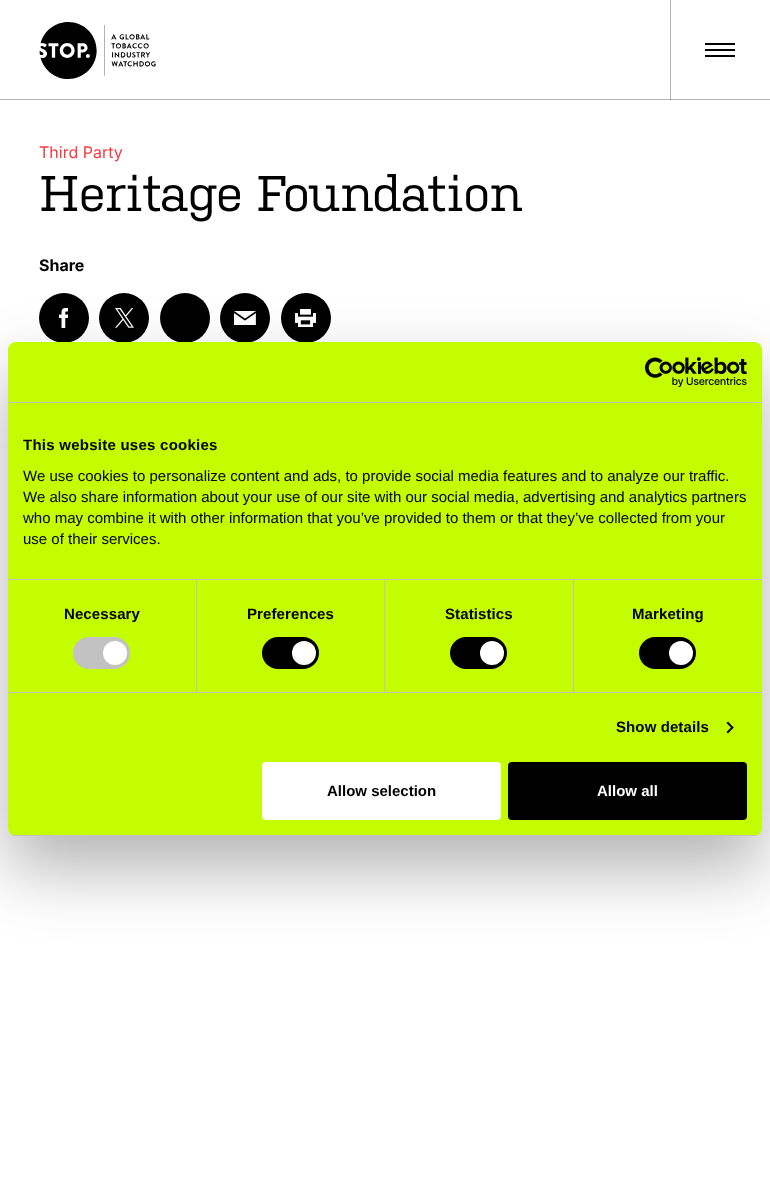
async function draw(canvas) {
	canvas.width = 770;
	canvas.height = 1178;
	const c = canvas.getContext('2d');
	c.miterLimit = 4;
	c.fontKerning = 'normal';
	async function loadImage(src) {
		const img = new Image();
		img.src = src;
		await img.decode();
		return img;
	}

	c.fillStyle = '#fff';
	c.fillRect(0, 0, 770, 1178);
	for (const [x, y, w, h, color] of [
		[670, 0, 1, 100, '#b3b3b3'],
		[0, 99, 770, 1, '#b3b3b3'],
		[670, 99, 1, 1, '#7d7d7d'],
	]) {
		c.fillStyle = color;
		c.fillRect(x, y, w, h);
	}
	c.drawImage(await loadImage('img1.png'), 39, 22, 117, 57);
	for (const [x, y, w, h, color] of [
		[705, 43, 30, 2, '#000'],
		[705, 49, 30, 2, '#000'],
		[705, 55, 30, 2, '#000'],
	]) {
		c.fillStyle = color;
		c.fillRect(x, y, w, h);
	}
	c.font = '16px Inter';
	c.fillStyle = '#f53a42';
	c.fillText('Third Party', 39, 158);
	c.letterSpacing = '-0.9px';
	c.font = '50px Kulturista';
	c.fillStyle = '#000';
	c.fillText('Heritage Foundation', 39, 211);
	c.letterSpacing = '0px';
	c.font = 'bold 16px Inter';
	c.fillText('Share', 39, 271);
	c.beginPath();
	c.arc(64, 318, 25, 0, 2 * Math.PI);
	c.fill();
	c.drawImage(await loadImage('img2.png'), 59, 308, 9, 20);
	c.beginPath();
	c.arc(124, 318, 25, 0, 2 * Math.PI);
	c.fill();
	c.drawImage(await loadImage('img3.png'), 115, 308, 19, 20);
	c.beginPath();
	c.arc(185, 318, 25, 0, 2 * Math.PI);
	c.fill();
	c.beginPath();
	c.arc(245, 318, 25, 0, 2 * Math.PI);
	c.fill();
	c.drawImage(await loadImage('img4.png'), 234, 311, 22, 14);
	c.beginPath();
	c.arc(306, 318, 25, 0, 2 * Math.PI);
	c.fill();
	c.drawImage(await loadImage('img5.png'), 295, 309, 21, 18);
	c.fillStyle = '#0000004d';
	c.filter = 'blur(34px)';
	c.beginPath();
	c.roundRect(8, 374, 754, 494, 8);
	c.fill();
	c.filter = 'none';
	c.fillStyle = '#c4fc00';
	c.beginPath();
	c.roundRect(8, 342, 754, 494, 8);
	c.fill();
	c.fillStyle = '#c2c2c2';
	c.fillRect(8, 402, 754, 1);
	c.drawImage(await loadImage('img6.png'), 645, 357, 102, 30);
	c.fillRect(8, 579, 754, 1);
	c.letterSpacing = '0.25px';
	c.font = 'bold 15px Liberation Sans';
	c.fillStyle = '#000';
	c.fillText('This website uses cookies', 23, 450);
	c.letterSpacing = '0px';
	c.font = '15px Liberation Sans';
	for (const [text, x, y] of [
		['We use cookies to personalize content and ads, to provide social media features and to analyze our traffic.', 23, 481],
		['We also share information about your use of our site with our social media, advertising and analytics partners', 23, 502],
		['who may combine it with other information that you’ve provided to them or that they’ve collected from your', 23, 523],
		['use of their services.', 23, 544],
	]) {
		c.fillText(text, x, y);
	}
	c.fillStyle = '#c2c2c2';
	c.fillRect(8, 692, 754, 1);
	c.fillRect(196, 580, 1, 112);
	c.letterSpacing = '0.1px';
	c.font = 'bold 15px Liberation Sans';
	c.fillStyle = '#000';
	c.fillText('Necessary', 64, 619);
	c.fillStyle = '#c2c2c2';
	c.beginPath();
	c.roundRect(73, 637, 57, 32, 16);
	c.fill();
	c.fillStyle = '#fff';
	c.beginPath();
	c.arc(115, 653, 12, 0, 2 * Math.PI);
	c.fill();
	c.fillStyle = '#c2c2c2';
	c.fillRect(384, 580, 1, 112);
	c.fillStyle = '#000';
	c.fillText('Preferences', 247, 619);
	c.beginPath();
	c.roundRect(262, 637, 57, 32, 16);
	c.fill();
	c.fillStyle = '#fff';
	c.beginPath();
	c.arc(304, 653, 12, 0, 2 * Math.PI);
	c.fill();
	c.fillStyle = '#c2c2c2';
	c.fillRect(573, 580, 1, 112);
	c.fillStyle = '#000';
	c.fillText('Statistics', 445, 619);
	c.beginPath();
	c.roundRect(450, 637, 57, 32, 16);
	c.fill();
	c.fillStyle = '#fff';
	c.beginPath();
	c.arc(492, 653, 12, 0, 2 * Math.PI);
	c.fill();
	c.fillStyle = '#000';
	c.fillText('Marketing', 632, 619);
	c.beginPath();
	c.roundRect(639, 637, 57, 32, 16);
	c.fill();
	c.fillStyle = '#fff';
	c.beginPath();
	c.arc(681, 653, 12, 0, 2 * Math.PI);
	c.fill();
	c.fillStyle = '#000';
	c.fillText('Show details', 616, 732);
	c.beginPath();
	c.moveTo(728, 721.5);
	c.lineTo(733.5, 727.5);
	c.lineTo(732.5, 729);
	c.lineTo(726.5, 723);
	c.closePath();
	c.fill();
	c.beginPath();
	c.moveTo(732.5, 726);
	c.lineTo(733.5, 727.5);
	c.lineTo(728, 733.5);
	c.lineTo(726.5, 732);
	c.closePath();
	c.fill();
	c.save();
	c.beginPath();
	c.roundRect(8, 342, 754, 494, 8);
	c.clip();
	c.fillStyle = '#c2c2c2';
	c.fillRect(8, 835, 754, 1);
	c.restore();
	c.fillStyle = '#fff';
	c.beginPath();
	c.roundRect(263, 763, 237, 56, 3);
	c.fill();
	c.strokeStyle = '#fff';
	c.lineWidth = 2;
	c.stroke();
	c.letterSpacing = '0px';
	c.fillStyle = '#000';
	c.fillText('Allow selection', 327, 796);
	c.beginPath();
	c.roundRect(509, 763, 237, 56, 3);
	c.fill();
	c.strokeStyle = '#000';
	c.stroke();
	c.fillStyle = '#fff';
	c.fillText('Allow all', 597, 796);
}

draw(document.querySelector('canvas'));
